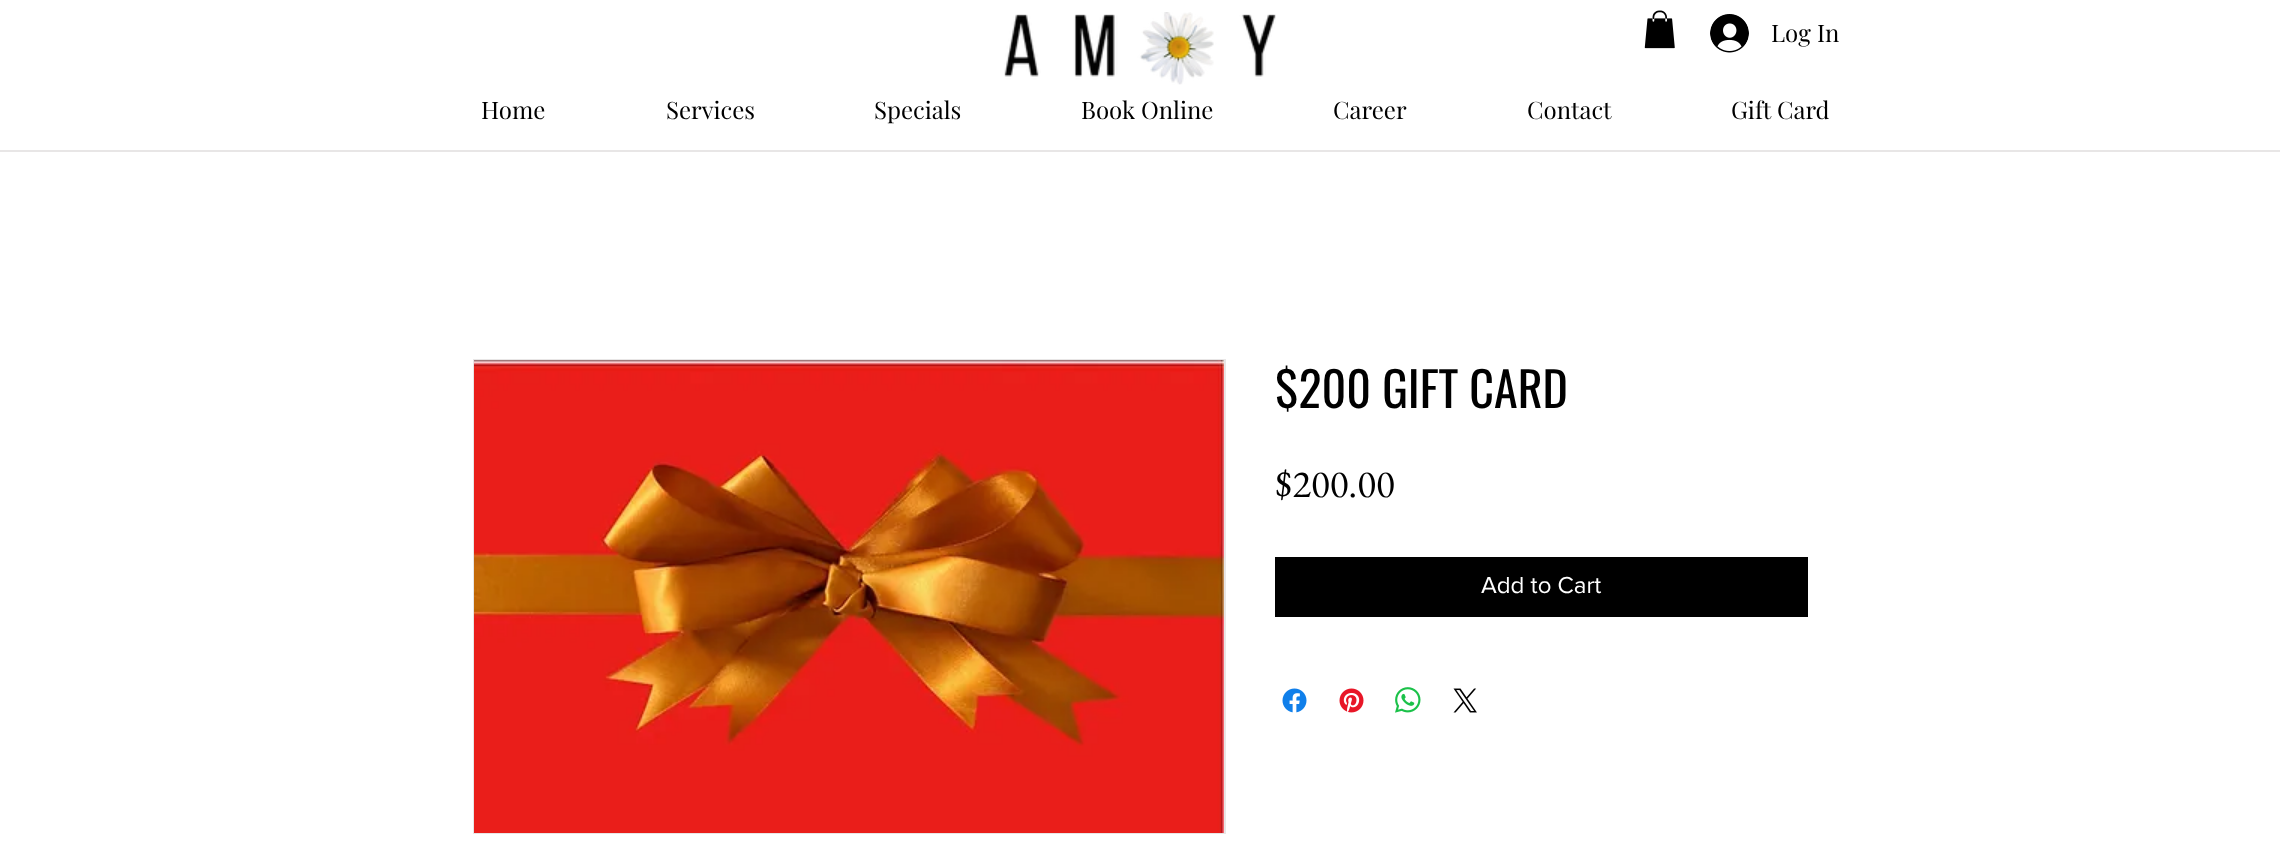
async function draw(canvas) {
	canvas.width = 2280;
	canvas.height = 857;
	const c = canvas.getContext('2d');
	c.miterLimit = 4;
	c.fontKerning = 'normal';
	async function loadImage(src) {
		const img = new Image();
		img.src = src;
		await img.decode();
		return img;
	}

	c.fillStyle = '#fff';
	c.fillRect(0, 0, 2280, 857);
	c.drawImage(await loadImage('img1.png'), 1004, 12, 272, 73);
	c.drawImage(await loadImage('img2.png'), 1644, 10, 31, 39);
	c.drawImage(await loadImage('img3.png'), 1710, 14, 39, 39);
	c.font = '24px Playfair Display';
	c.fillStyle = '#000';
	for (const [text, x, y] of [
		['Log In', 1771, 42],
		['Home', 481, 119],
		['Services', 666, 119],
		['Specials', 874, 119],
		['Book Online', 1081, 119],
		['Career', 1333, 119],
		['Contact', 1527, 119],
		['Gift Card', 1731, 119],
	]) {
		c.fillText(text, x, y);
	}
	c.fillStyle = '#e8e6e6';
	c.fillRect(0, 150, 2280, 2);
	c.strokeStyle = '#e8e6e6';
	c.lineWidth = 2;
	c.strokeRect(474, 360, 751, 473);
	c.drawImage(await loadImage('img4.png'), 474, 360, 750, 473);
	c.font = '48px Oswald';
	c.fillStyle = '#000';
	c.fillText('$200 GIFT CARD', 1275, 408);
	c.font = '39px EB Garamond';
	c.fillText('$200.00', 1275, 497);
	c.fillRect(1275, 557, 533, 60);
	c.font = '24px "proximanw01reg"';
	c.fillStyle = '#fff';
	c.fillText('Add to Cart', 1481, 593);
	c.drawImage(await loadImage('img5.png'), 1282, 688, 25, 25);
	c.drawImage(await loadImage('img6.png'), 1339, 688, 25, 25);
	c.drawImage(await loadImage('img7.png'), 1395, 687, 26, 26);
	c.drawImage(await loadImage('img8.png'), 1453, 688, 24, 25);
}

draw(document.querySelector('canvas'));
